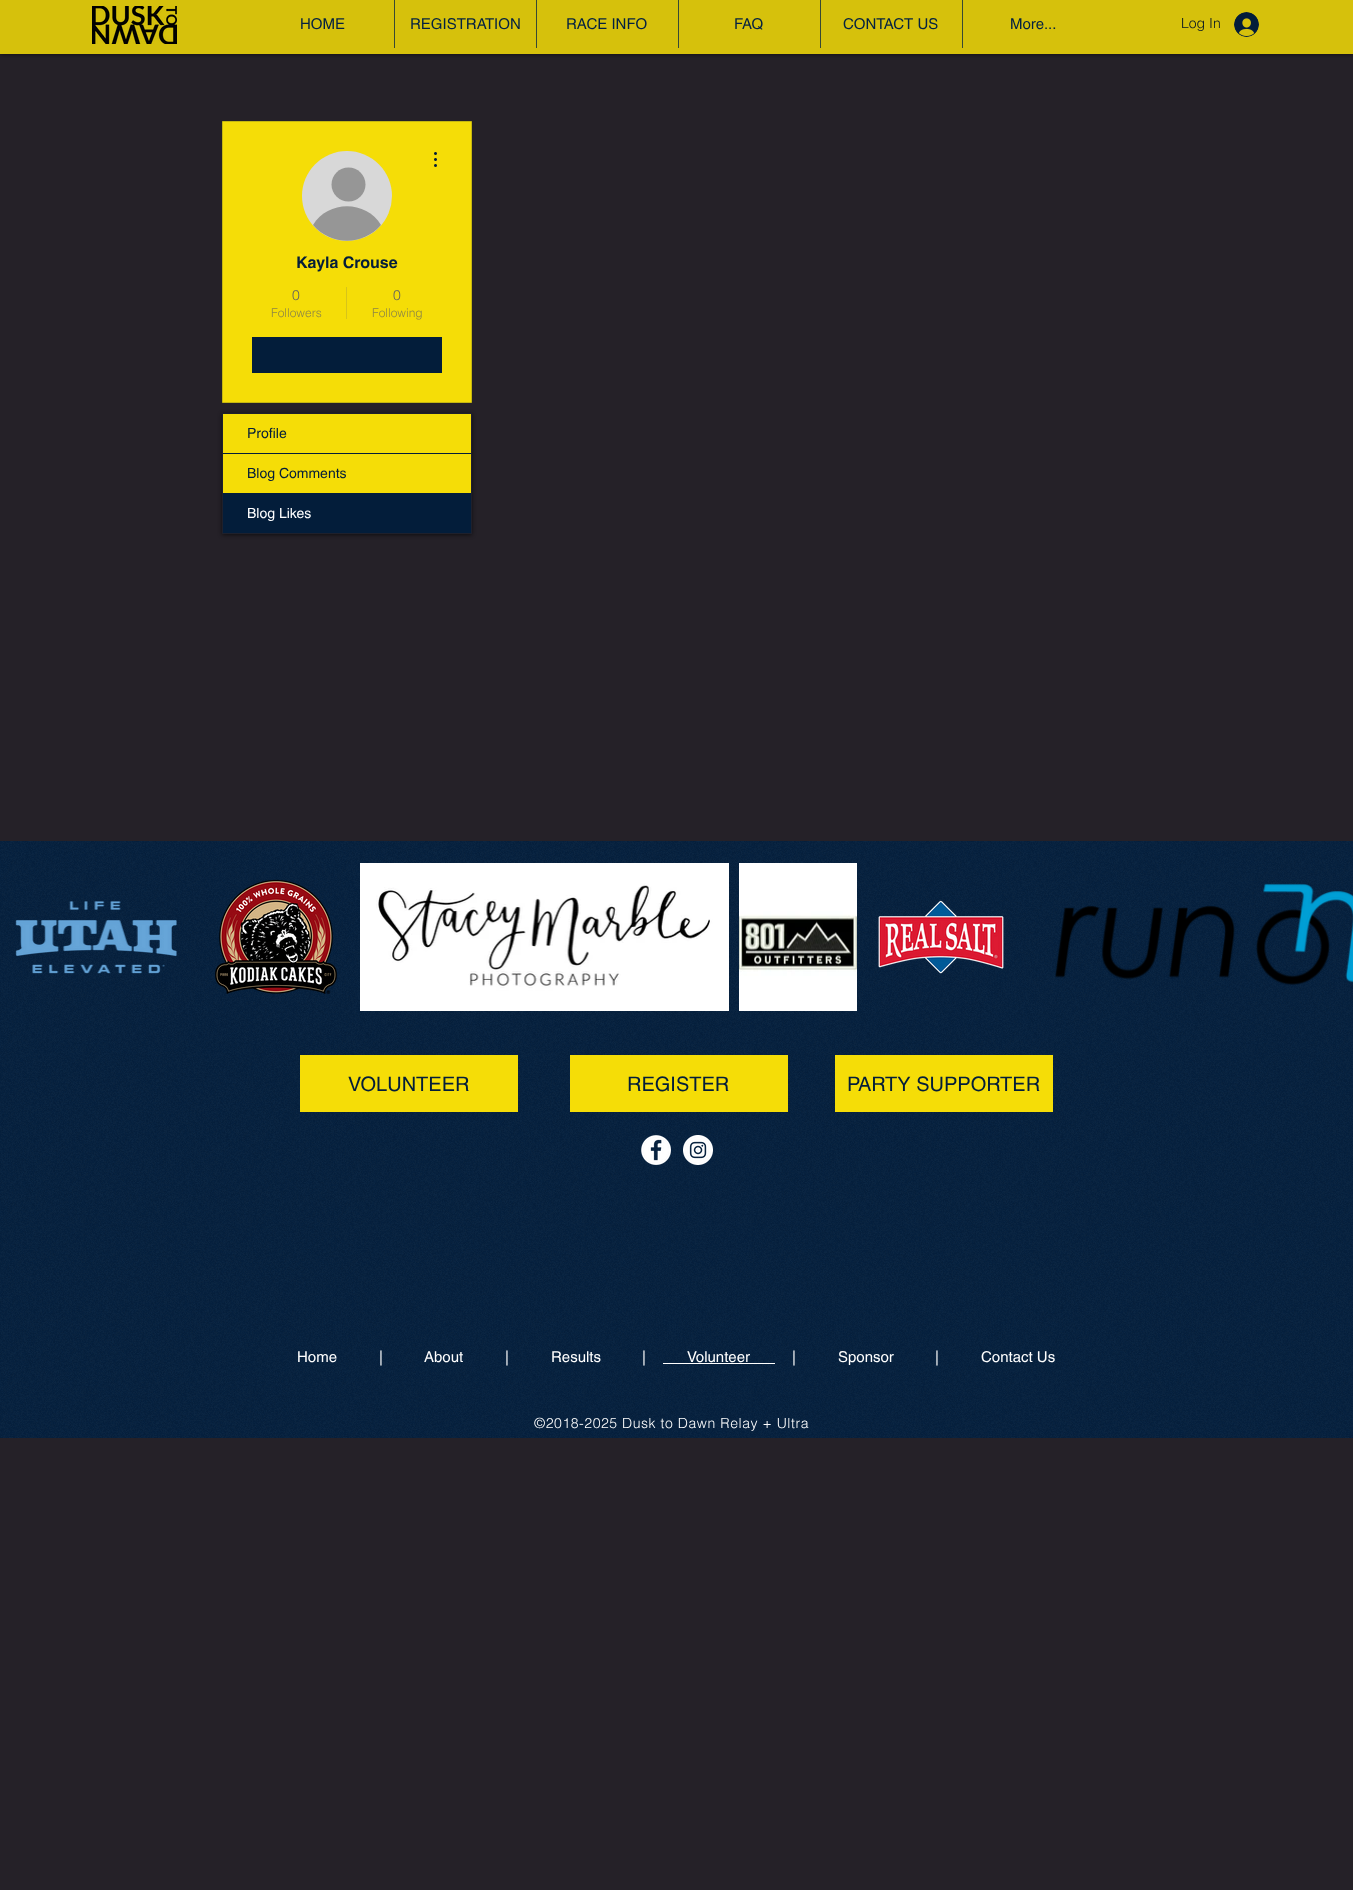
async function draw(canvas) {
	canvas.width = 1353;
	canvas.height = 1890;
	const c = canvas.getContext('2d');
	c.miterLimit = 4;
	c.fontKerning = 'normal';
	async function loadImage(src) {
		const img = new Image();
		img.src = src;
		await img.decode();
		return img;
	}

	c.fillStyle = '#252128';
	c.fillRect(0, 0, 1353, 1890);
	c.fillStyle = '#000000b3';
	c.filter = 'blur(2.5px)';
	c.beginPath();
	c.rect(0, 0, 1353, 54);
	c.fill();
	c.filter = 'none';
	c.fillStyle = '#d6c10c';
	c.fillRect(0, 0, 1353, 54);
	c.drawImage(await loadImage('img1.png'), 92, 6, 85, 38);
	c.font = '15px helvetica';
	c.fillStyle = '#032142';
	c.fillText('HOME', 300, 29);
	c.fillStyle = '#384935';
	c.fillRect(394, 0, 1, 48);
	c.fillStyle = '#032142';
	c.fillText('REGISTRATION', 410, 29);
	c.fillStyle = '#384935';
	c.fillRect(536, 0, 1, 48);
	c.fillStyle = '#032142';
	c.fillText('RACE INFO', 566, 29);
	c.fillStyle = '#384935';
	c.fillRect(678, 0, 1, 48);
	c.fillStyle = '#032142';
	c.fillText('FAQ', 734, 29);
	c.fillStyle = '#384935';
	c.fillRect(820, 0, 1, 48);
	c.fillStyle = '#032142';
	c.fillText('CONTACT US', 843, 29);
	c.fillStyle = '#384935';
	c.fillRect(962, 0, 1, 48);
	c.fillStyle = '#032142';
	c.fillText('More...', 1010, 29);
	c.font = '300 14px helvetica';
	c.fillStyle = '#021326';
	c.fillText('Log In', 1181, 28);
	c.drawImage(await loadImage('img2.png'), 1234, 12, 25, 25);
	c.fillStyle = '#f5dd07';
	c.beginPath();
	c.rect(222.5, 121.5, 249, 281);
	c.fill();
	c.strokeStyle = '#c5b711';
	c.stroke();
	c.fillStyle = '#d8d8d8';
	c.beginPath();
	c.arc(347, 196, 45, 0, 2 * Math.PI);
	c.fill();
	c.fillStyle = '#969696';
	c.beginPath();
	c.arc(348.5, 184.5, 17, 0, 2 * Math.PI);
	c.fill();
	c.beginPath();
	c.moveTo(381, 225);
	c.bezierCurveTo(363, 246, 331, 246, 313, 225);
	c.bezierCurveTo(328, 200, 366, 200, 381, 225);
	c.closePath();
	c.fill();
	c.drawImage(await loadImage('img3.png'), 434, 152, 3, 15);
	c.font = 'bold 16px helvetica';
	c.fillStyle = '#031d3a';
	c.fillText('Kayla Crouse', 296, 268);
	c.font = '300 14px helvetica';
	c.fillStyle = '#616161';
	c.fillText('0', 292, 300);
	c.font = '300 12px helvetica';
	c.fillStyle = '#8d8646';
	c.fillText('Followers', 271, 317);
	c.fillStyle = '#d7c419';
	c.fillRect(346, 287, 1, 32);
	c.font = '300 14px helvetica';
	c.fillStyle = '#616161';
	c.fillText('0', 393, 300);
	c.font = '300 12px helvetica';
	c.fillStyle = '#8d8646';
	c.fillText('Following', 372, 317);
	c.fillStyle = '#031d3a';
	c.fillRect(252, 337, 190, 36);
	c.fillStyle = '#00000099';
	c.filter = 'blur(2px)';
	c.beginPath();
	c.rect(222, 414, 250, 121);
	c.fill();
	c.filter = 'none';
	c.strokeStyle = '#1e202c';
	c.strokeRect(222.5, 413.5, 249, 120);
	c.fillStyle = '#031d3a';
	c.fillRect(223, 453, 248, 1);
	c.fillStyle = '#f5dd07';
	c.fillRect(223, 414, 248, 39);
	c.font = '14px helvetica';
	c.fillStyle = '#031d3a';
	c.fillText('Profile', 247, 438);
	c.fillRect(223, 493, 248, 40);
	c.fillStyle = '#f5dd07';
	c.fillRect(223, 454, 248, 39);
	c.fillStyle = '#031d3a';
	c.fillText('Blog Comments', 247, 478);
	c.fillStyle = '#fff';
	c.fillText('Blog Likes', 247, 518);
	c.fillStyle = '#06213f';
	c.fillRect(0, 841, 1353, 597);
	c.drawImage(await loadImage('img4.png'), 0, 841, 1353, 597);
	c.drawImage(await loadImage('img5.png'), 15, 901, 162, 73);
	c.drawImage(await loadImage('img6.png'), 215, 879, 122, 115);
	c.drawImage(await loadImage('img7.png'), 360, 863, 369, 148);
	c.drawImage(await loadImage('img8.png'), 739, 863, 118, 148);
	c.drawImage(await loadImage('img9.png'), 878, 900, 126, 74);
	c.drawImage(await loadImage('img10.png'), 1055, 883, 298, 102);
	c.fillStyle = '#f5dd07';
	c.fillRect(300, 1055, 218, 57);
	c.font = '20px helvetica';
	c.fillStyle = '#031d3a';
	c.fillText('VOLUNTEER', 348, 1091);
	c.fillStyle = '#f5dd07';
	c.fillRect(570, 1055, 218, 57);
	c.fillStyle = '#031d3a';
	c.fillText('REGISTER', 627, 1091);
	c.fillStyle = '#f5dd07';
	c.fillRect(835, 1055, 218, 57);
	c.fillStyle = '#031d3a';
	c.fillText('PARTY SUPPORTER', 847, 1091);
	c.drawImage(await loadImage('img11.png'), 641, 1135, 30, 30);
	c.drawImage(await loadImage('img12.png'), 683, 1135, 30, 30);
	c.font = '15px helvetica';
	c.fillStyle = '#fff';
	for (const [text, x, y] of [
		['Home', 297, 1362],
		['|', 379, 1362],
		['About', 424, 1362],
		['|', 505, 1362],
		['Results', 551, 1362],
		['|', 642, 1362],
		['Volunteer', 687, 1362],
	]) {
		c.fillText(text, x, y);
	}
	c.fillRect(663, 1363, 112, 1);
	for (const [text, x, y] of [
		['|', 792, 1362],
		['Sponsor', 838, 1362],
		['|', 935, 1362],
		['Contact Us', 981, 1362],
	]) {
		c.fillText(text, x, y);
	}
	c.letterSpacing = '0.55px';
	c.font = '300 14px helvetica';
	c.fillText('©2018-2025 Dusk to Dawn Relay + Ultra', 534, 1428);
}

draw(document.querySelector('canvas'));
